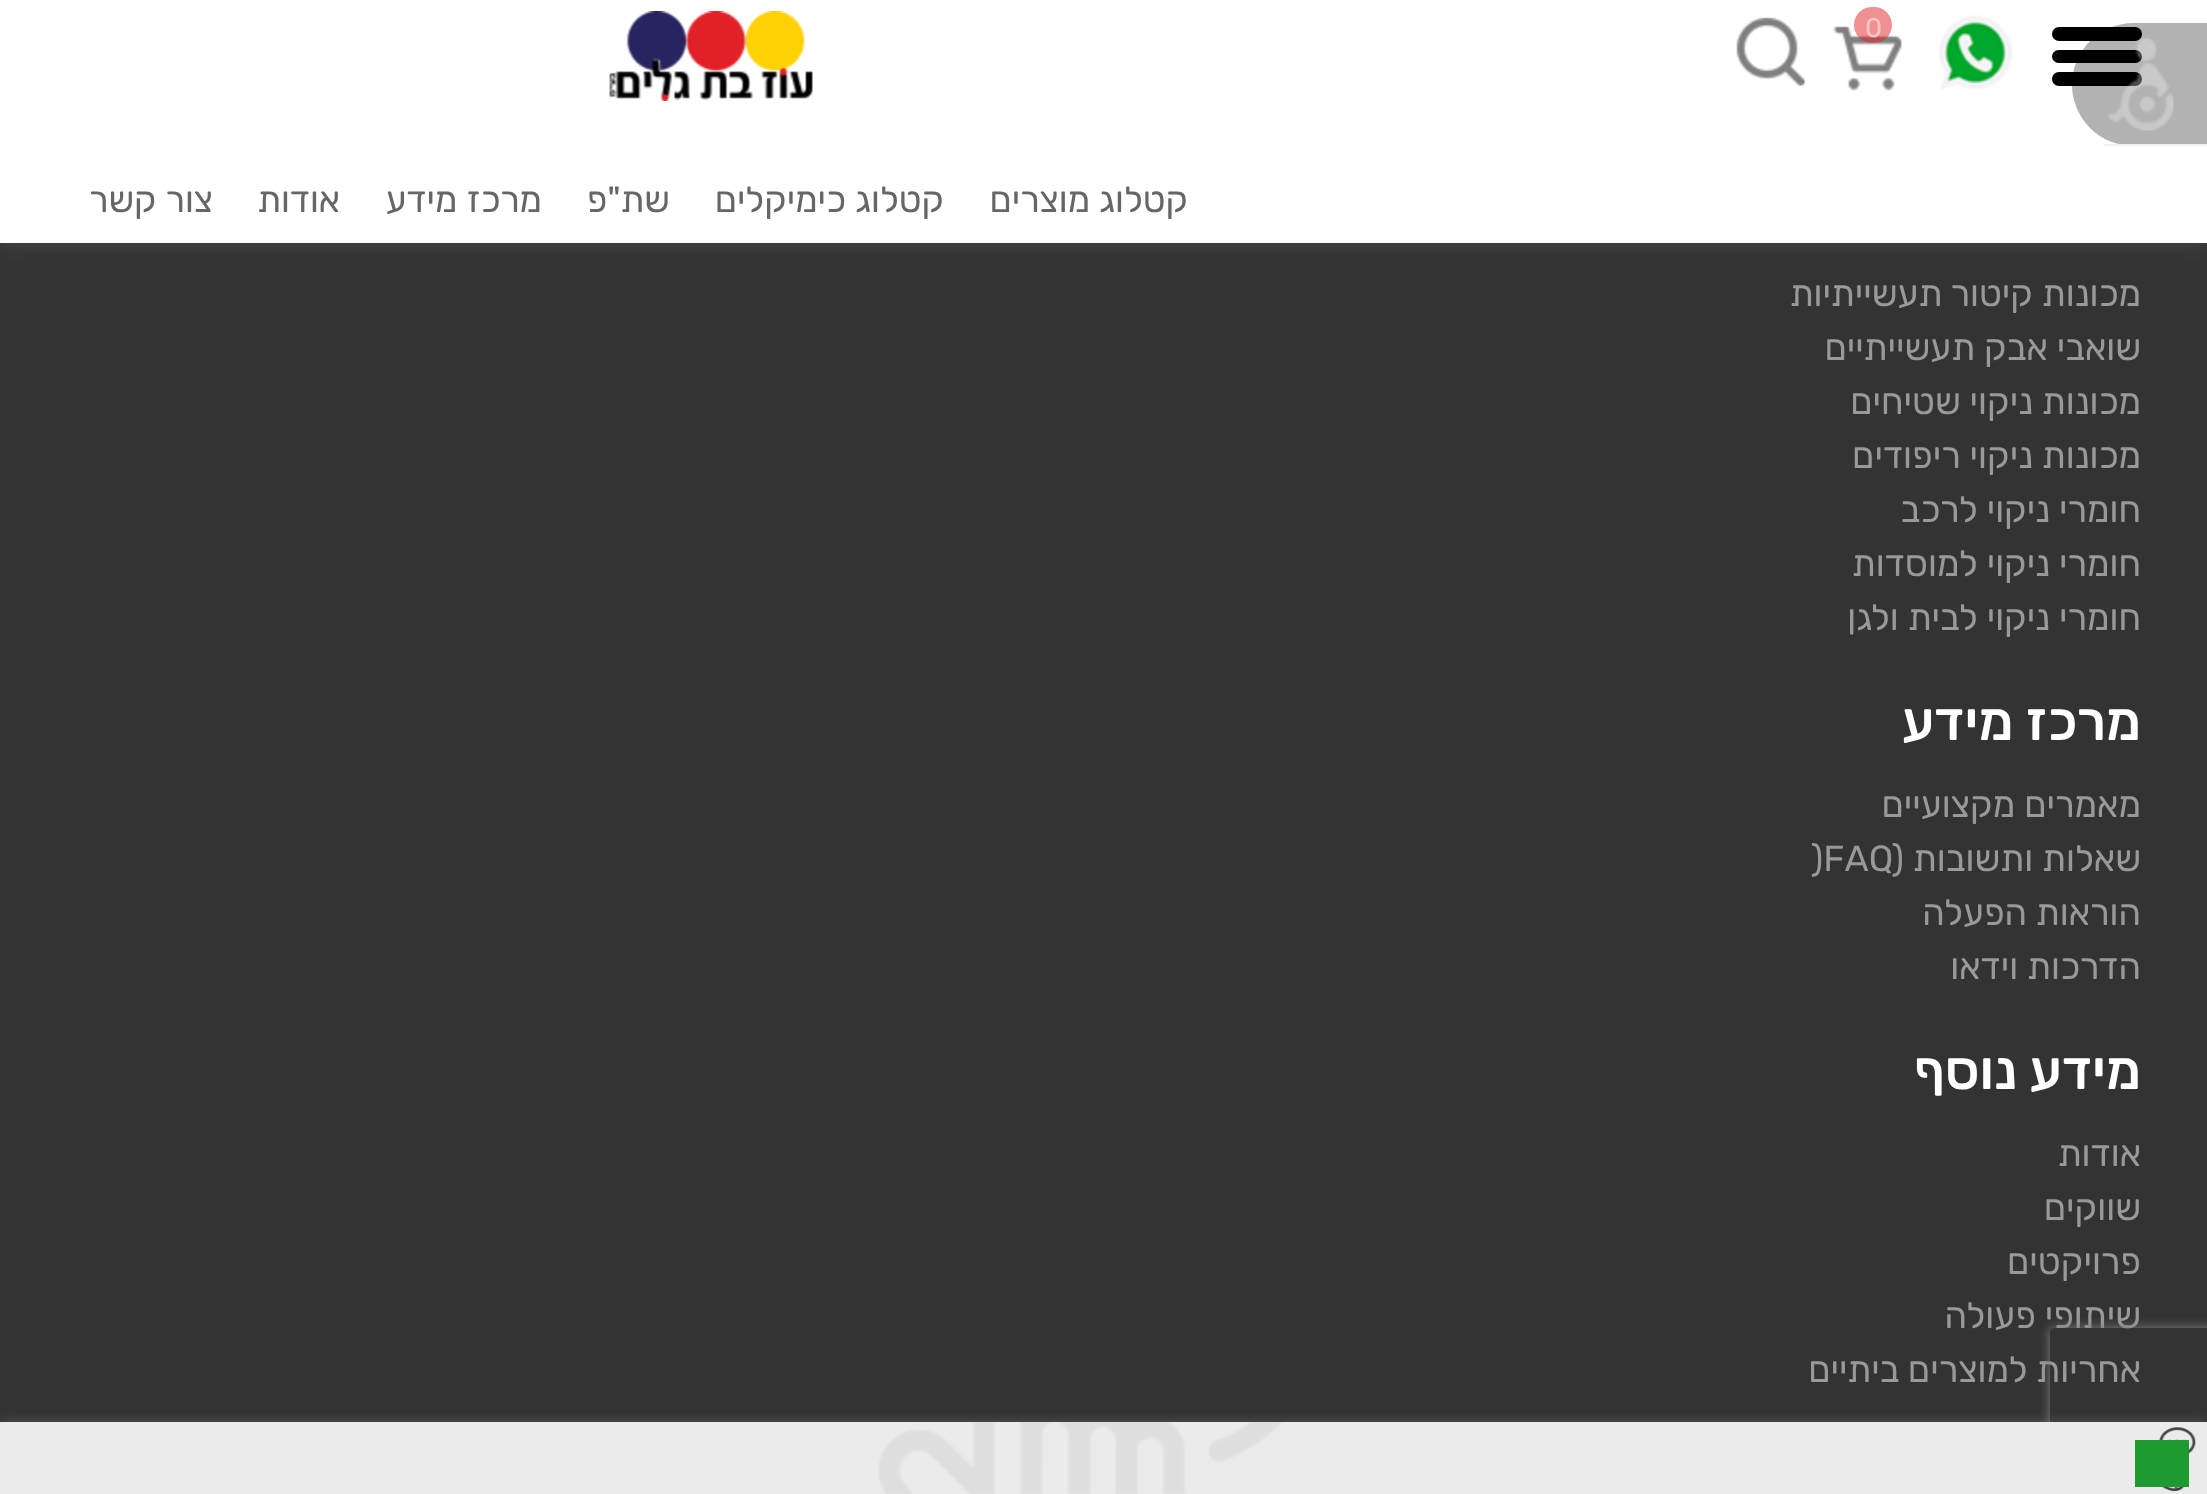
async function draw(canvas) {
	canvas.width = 2207;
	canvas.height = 1494;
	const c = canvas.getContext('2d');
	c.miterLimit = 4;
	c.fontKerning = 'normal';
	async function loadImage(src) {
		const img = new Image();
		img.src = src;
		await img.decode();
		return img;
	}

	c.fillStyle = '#333';
	c.fillRect(0, 0, 2207, 1494);
	c.fillStyle = '#64646480';
	c.filter = 'blur(11px)';
	c.beginPath();
	c.rect(0, 0, 2207, 243);
	c.fill();
	c.filter = 'none';
	c.fillStyle = '#fff';
	c.fillRect(0, 0, 2207, 243);
	c.fillStyle = '#000';
	c.beginPath();
	c.roundRect(2052, 27, 90, 14, 7);
	c.fill();
	c.beginPath();
	c.roundRect(2052, 50, 90, 13, 6.5);
	c.fill();
	c.beginPath();
	c.roundRect(2052, 72, 90, 14, 7);
	c.fill();
	c.drawImage(await loadImage('img1.png'), 1939, 15, 73, 75);
	c.drawImage(await loadImage('img2.png'), 1833, 26, 69, 65);
	c.fillStyle = '#e1212780';
	c.beginPath();
	c.roundRect(1854, 7, 38, 36, 18);
	c.fill();
	c.font = '27px Rubik';
	c.fillStyle = '#f6c6c7';
	c.fillText('0', 1865, 37);
	c.drawImage(await loadImage('img3.png'), 1736, 17, 69, 70);
	c.drawImage(await loadImage('img4.png'), 609, 11, 204, 90);
	c.direction = 'rtl';
	c.font = '36px Rubik';
	c.fillStyle = '#666';
	for (const [text, x, y] of [
		['קטלוג מוצרים', 1188, 212],
		['קטלוג כימיקלים', 944, 212],
		['שת"פ', 670, 212],
	]) {
		c.fillText(text, x, y);
	}
	c.wordSpacing = '1px';
	c.fillText('מרכז מידע', 542, 212);
	c.wordSpacing = '0px';
	c.fillText('אודות', 340, 212);
	c.wordSpacing = '1px';
	c.fillText('צור קשר', 213, 212);
	c.wordSpacing = '0px';
	c.font = '36.25px Rubik';
	c.fillStyle = '#999';
	for (const [text, x, y] of [
		['מכונות קיטור תעשייתיות', 2141, 306],
		['שואבי אבק תעשייתיים', 2141, 360],
		['מכונות ניקוי שטיחים', 2141, 414],
		['מכונות ניקוי ריפודים', 2141, 468],
		['חומרי ניקוי לרכב', 2141, 522],
		['חומרי ניקוי למוסדות', 2141, 576],
		['חומרי ניקוי לבית ולגן', 2141, 630],
	]) {
		c.fillText(text, x, y);
	}
	c.wordSpacing = '1px';
	c.font = '500 54px Rubik';
	c.fillStyle = '#fff';
	c.fillText('מרכז מידע', 2141, 740);
	c.wordSpacing = '0px';
	c.font = '36.25px Rubik';
	c.fillStyle = '#999';
	c.fillText('מאמרים מקצועיים', 2141, 817);
	c.fillText('שאלות ותשובות (', 2141, 871);
	c.direction = 'ltr';
	c.fillText(')FAQ', 1811, 871);
	c.direction = 'rtl';
	c.fillText('הוראות הפעלה', 2141, 925);
	c.fillText('הדרכות וידאו', 2141, 979);
	c.font = '500 54px Rubik';
	c.fillStyle = '#fff';
	c.fillText('מידע נוסף', 2141, 1089);
	c.font = '36.25px Rubik';
	c.fillStyle = '#999';
	for (const [text, x, y] of [
		['אודות', 2141, 1166],
		['שווקים', 2141, 1220],
		['פרויקטים', 2141, 1274],
		['שיתופי פעולה', 2141, 1328],
		['אחריות למוצרים ביתיים', 2141, 1382],
	]) {
		c.fillText(text, x, y);
	}
	c.fillStyle = '#646464b3';
	c.filter = 'blur(5.5px)';
	c.beginPath();
	c.rect(0, 1422, 2207, 72);
	c.fill();
	c.filter = 'none';
	c.save();
	c.beginPath();
	c.moveTo(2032, 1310);
	c.lineTo(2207, 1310);
	c.lineTo(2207, 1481);
	c.lineTo(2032, 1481);
	c.closePath();
	c.moveTo(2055, 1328);
	c.lineTo(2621, 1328);
	c.bezierCurveTo(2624, 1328, 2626, 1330, 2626, 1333);
	c.lineTo(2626, 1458);
	c.bezierCurveTo(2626, 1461, 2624, 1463, 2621, 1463);
	c.lineTo(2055, 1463);
	c.bezierCurveTo(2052, 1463, 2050, 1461, 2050, 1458);
	c.lineTo(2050, 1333);
	c.bezierCurveTo(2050, 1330, 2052, 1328, 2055, 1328);
	c.closePath();
	c.clip('evenodd');
	c.fillStyle = '#808080';
	c.filter = 'blur(5.5px)';
	c.beginPath();
	c.roundRect(2050, 1328, 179, 135, 5);
	c.fill();
	c.filter = 'none';
	c.restore();
	c.fillStyle = '#ebebeb';
	c.fillRect(0, 1422, 2207, 72);
	c.drawImage(await loadImage('img5.png'), 878, 1422, 404, 72);
	c.drawImage(await loadImage('img6.png'), 2159, 1427, 37, 64);
	c.fillStyle = '#1f9a30';
	c.fillRect(2135, 1440, 54, 47);
	c.fillStyle = '#0000004d';
	c.beginPath();
	c.roundRect(2072, 23, 135, 123, [61.5, 0, 0, 61.5]);
	c.fill();
	c.drawImage(await loadImage('img7.png'), 2108, 38, 66, 93);
	c.fillStyle = '#f0f0f0';
	c.fillRect(2104, 144, 103, 2);
}

draw(document.querySelector('canvas'));
